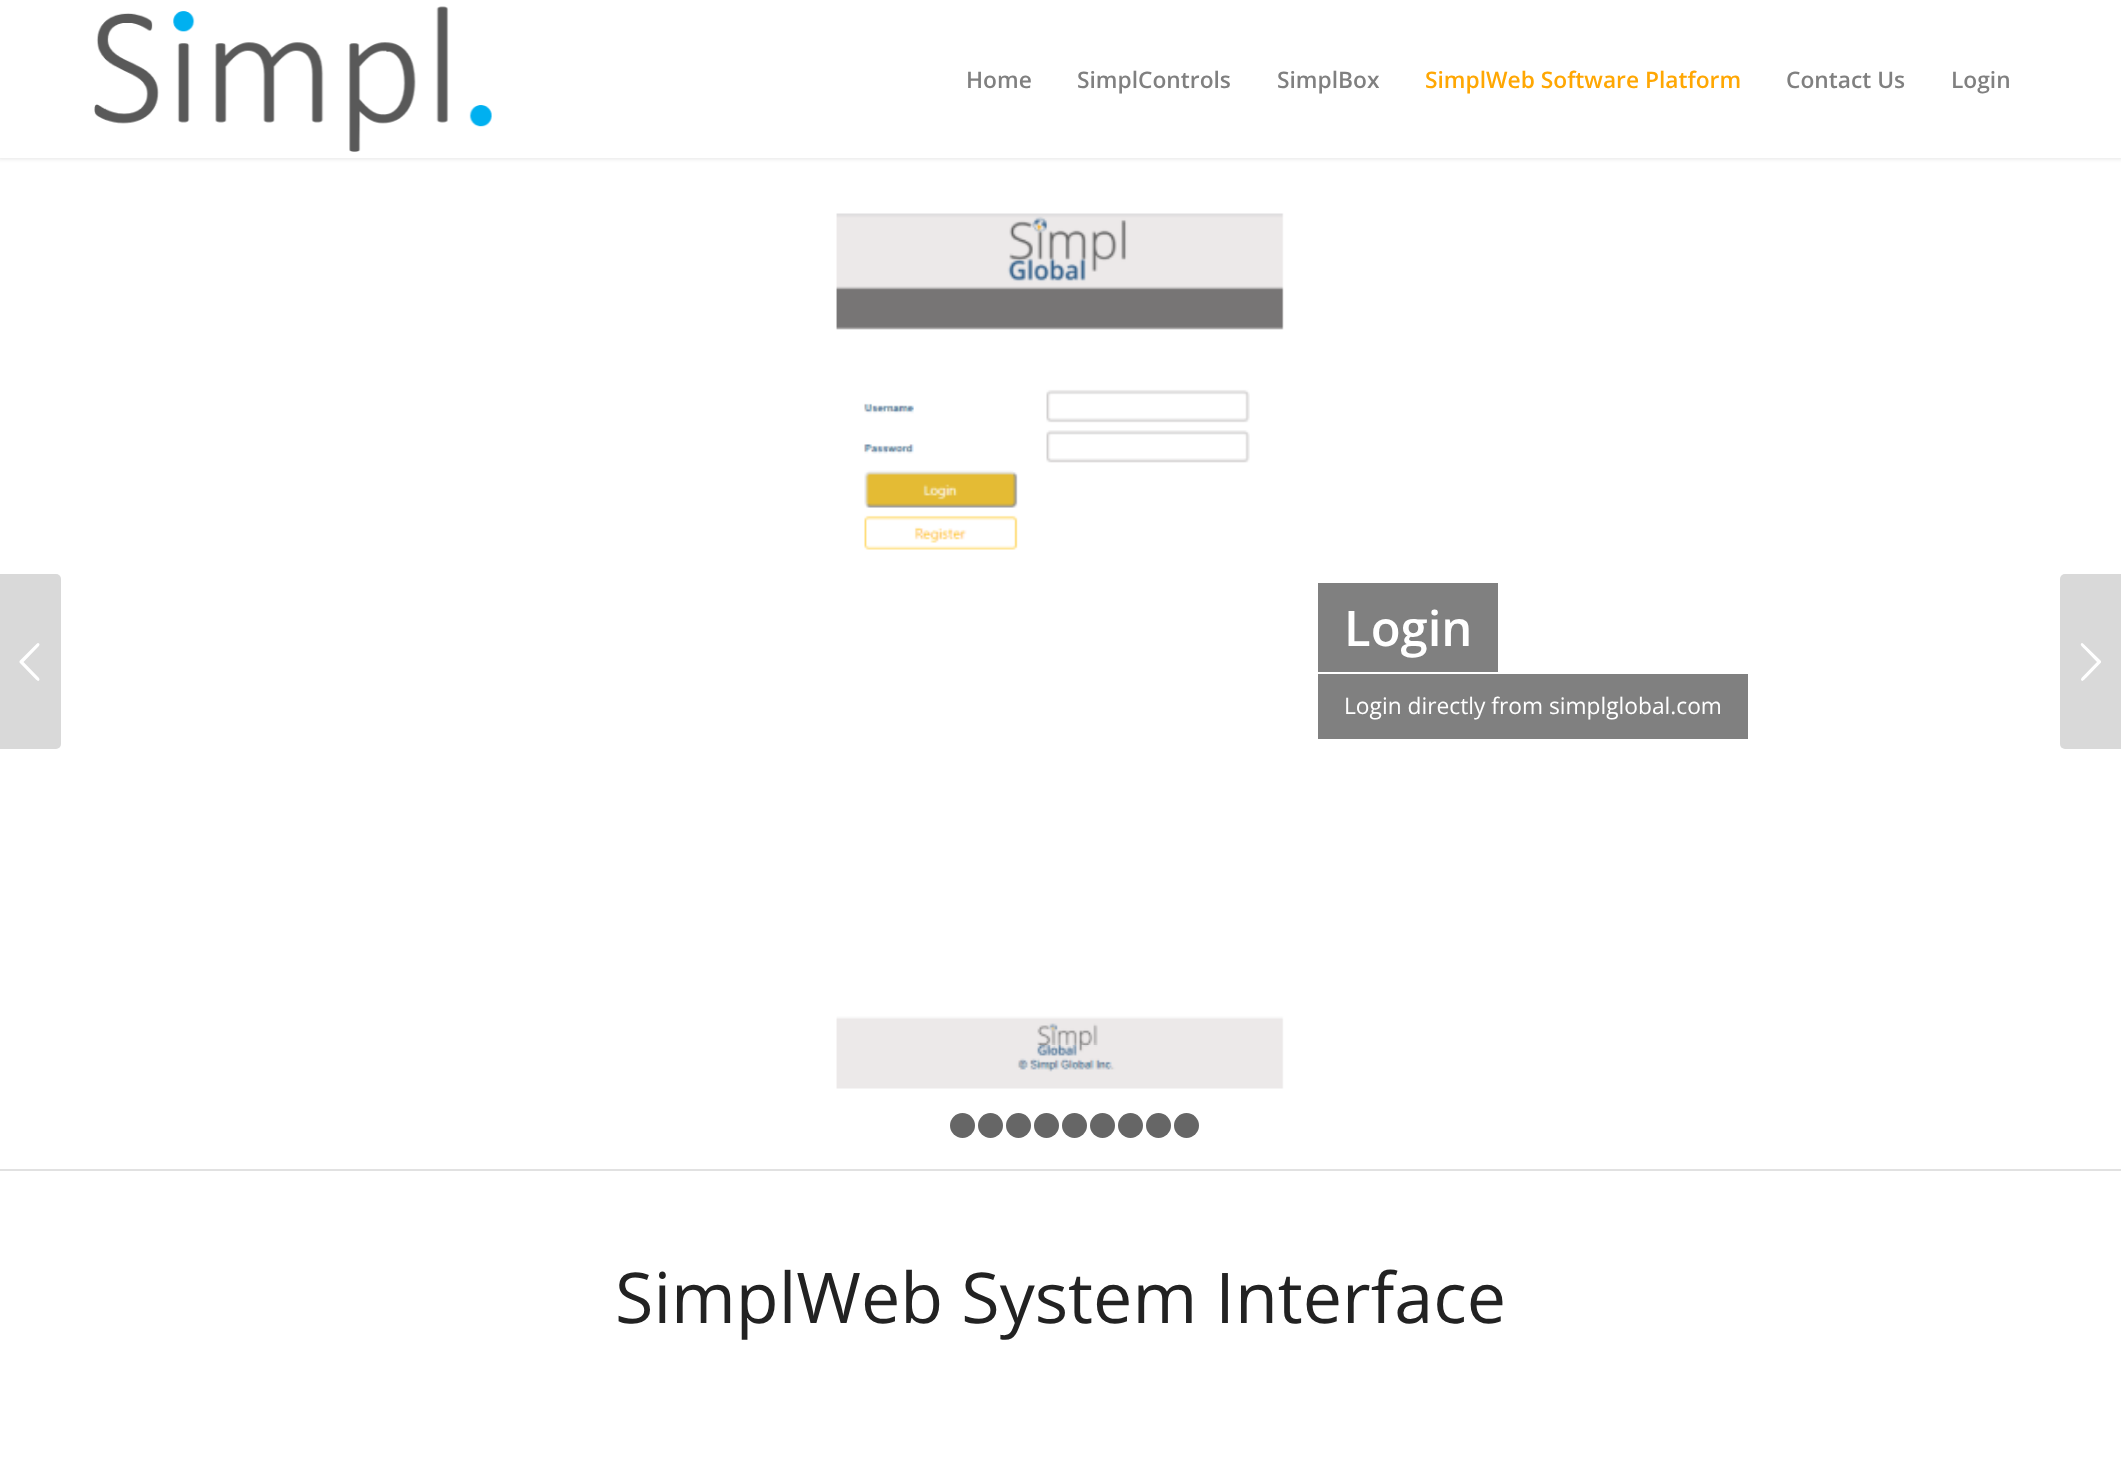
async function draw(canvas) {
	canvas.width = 2121;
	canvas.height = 1474;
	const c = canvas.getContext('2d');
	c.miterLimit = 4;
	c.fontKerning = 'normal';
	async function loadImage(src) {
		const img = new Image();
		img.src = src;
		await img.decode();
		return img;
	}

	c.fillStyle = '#fff';
	c.fillRect(0, 0, 2121, 1474);
	c.fillStyle = '#0000001a';
	c.filter = 'blur(2px)';
	c.beginPath();
	c.rect(-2, -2, 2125, 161);
	c.fill();
	c.filter = 'none';
	c.fillStyle = '#fff';
	c.fillRect(0, 0, 2121, 158);
	c.drawImage(await loadImage('img1.png'), 94, 6, 398, 146);
	c.font = '600 22.75px Open Sans';
	c.fillStyle = '#808080';
	for (const [text, x, y] of [
		['Home', 966, 88],
		['SimplControls', 1077, 88],
		['SimplBox', 1277, 88],
	]) {
		c.fillText(text, x, y);
	}
	c.fillStyle = '#ffa703';
	c.fillText('SimplWeb Software Platform', 1425, 88);
	c.fillStyle = '#808080';
	c.fillText('Contact Us', 1786, 88);
	c.fillText('Login', 1951, 88);
	c.fillStyle = '#d9d9d9';
	c.beginPath();
	c.roundRect(0, 574, 61, 175, [0, 5, 5, 0]);
	c.fill();
	c.fillStyle = '#fff';
	c.beginPath();
	c.moveTo(39, 678);
	c.lineTo(39.5, 679.5);
	c.bezierCurveTo(38.5, 683.5, 34.5, 677.5, 34, 677.5);
	c.lineTo(19.5, 662.5);
	c.lineTo(19.5, 661.5);
	c.lineTo(19.5, 661);
	c.lineTo(37, 643.5);
	c.lineTo(38, 643);
	c.bezierCurveTo(42, 644, 37, 648, 36.5, 648.5);
	c.lineTo(23.5, 662);
	c.closePath();
	c.fill();
	c.fillStyle = '#d9d9d9';
	c.beginPath();
	c.roundRect(2060, 574, 61, 175, [5, 0, 0, 5]);
	c.fill();
	c.fillStyle = '#fff';
	c.beginPath();
	c.moveTo(2081.5, 678);
	c.lineTo(2097, 662);
	c.lineTo(2084, 648.5);
	c.bezierCurveTo(2083.5, 648, 2078.5, 644, 2082, 643);
	c.lineTo(2083, 643.5);
	c.lineTo(2101, 661);
	c.lineTo(2101, 661.5);
	c.lineTo(2101, 662.5);
	c.lineTo(2086.5, 677.5);
	c.bezierCurveTo(2086, 677.5, 2082, 683.5, 2081, 679.5);
	c.closePath();
	c.fill();
	c.drawImage(await loadImage('img2.png'), 836, 213, 448, 876);
	c.fillStyle = '#808080';
	c.fillRect(1318, 583, 180, 89);
	c.font = '600 49px Open Sans';
	c.fillStyle = '#fff';
	c.fillText('Login', 1344, 646);
	c.fillStyle = '#808080';
	c.fillRect(1318, 674, 430, 65);
	c.font = '22.75px Open Sans';
	c.fillStyle = '#fff';
	c.fillText('Login directly from simplglobal.com', 1344, 714);
	c.fillStyle = '#666';
	c.beginPath();
	c.arc(962.5, 1125.5, 12.5, 0, 2 * Math.PI);
	c.fill();
	c.beginPath();
	c.arc(990.5, 1125.5, 12.5, 0, 2 * Math.PI);
	c.fill();
	c.beginPath();
	c.arc(1018.5, 1125.5, 12.5, 0, 2 * Math.PI);
	c.fill();
	c.beginPath();
	c.arc(1046.5, 1125.5, 12.5, 0, 2 * Math.PI);
	c.fill();
	c.beginPath();
	c.arc(1074.5, 1125.5, 12.5, 0, 2 * Math.PI);
	c.fill();
	c.beginPath();
	c.arc(1102.5, 1125.5, 12.5, 0, 2 * Math.PI);
	c.fill();
	c.beginPath();
	c.arc(1130.5, 1125.5, 12.5, 0, 2 * Math.PI);
	c.fill();
	c.beginPath();
	c.arc(1158.5, 1125.5, 12.5, 0, 2 * Math.PI);
	c.fill();
	c.beginPath();
	c.arc(1186.5, 1125.5, 12.5, 0, 2 * Math.PI);
	c.fill();
	c.fillStyle = '#e1e1e1';
	c.fillRect(0, 1169, 2121, 2);
	c.font = '70px Open Sans';
	c.fillStyle = '#222';
	c.fillText('SimplWeb System Interface', 615, 1323);
}

draw(document.querySelector('canvas'));
